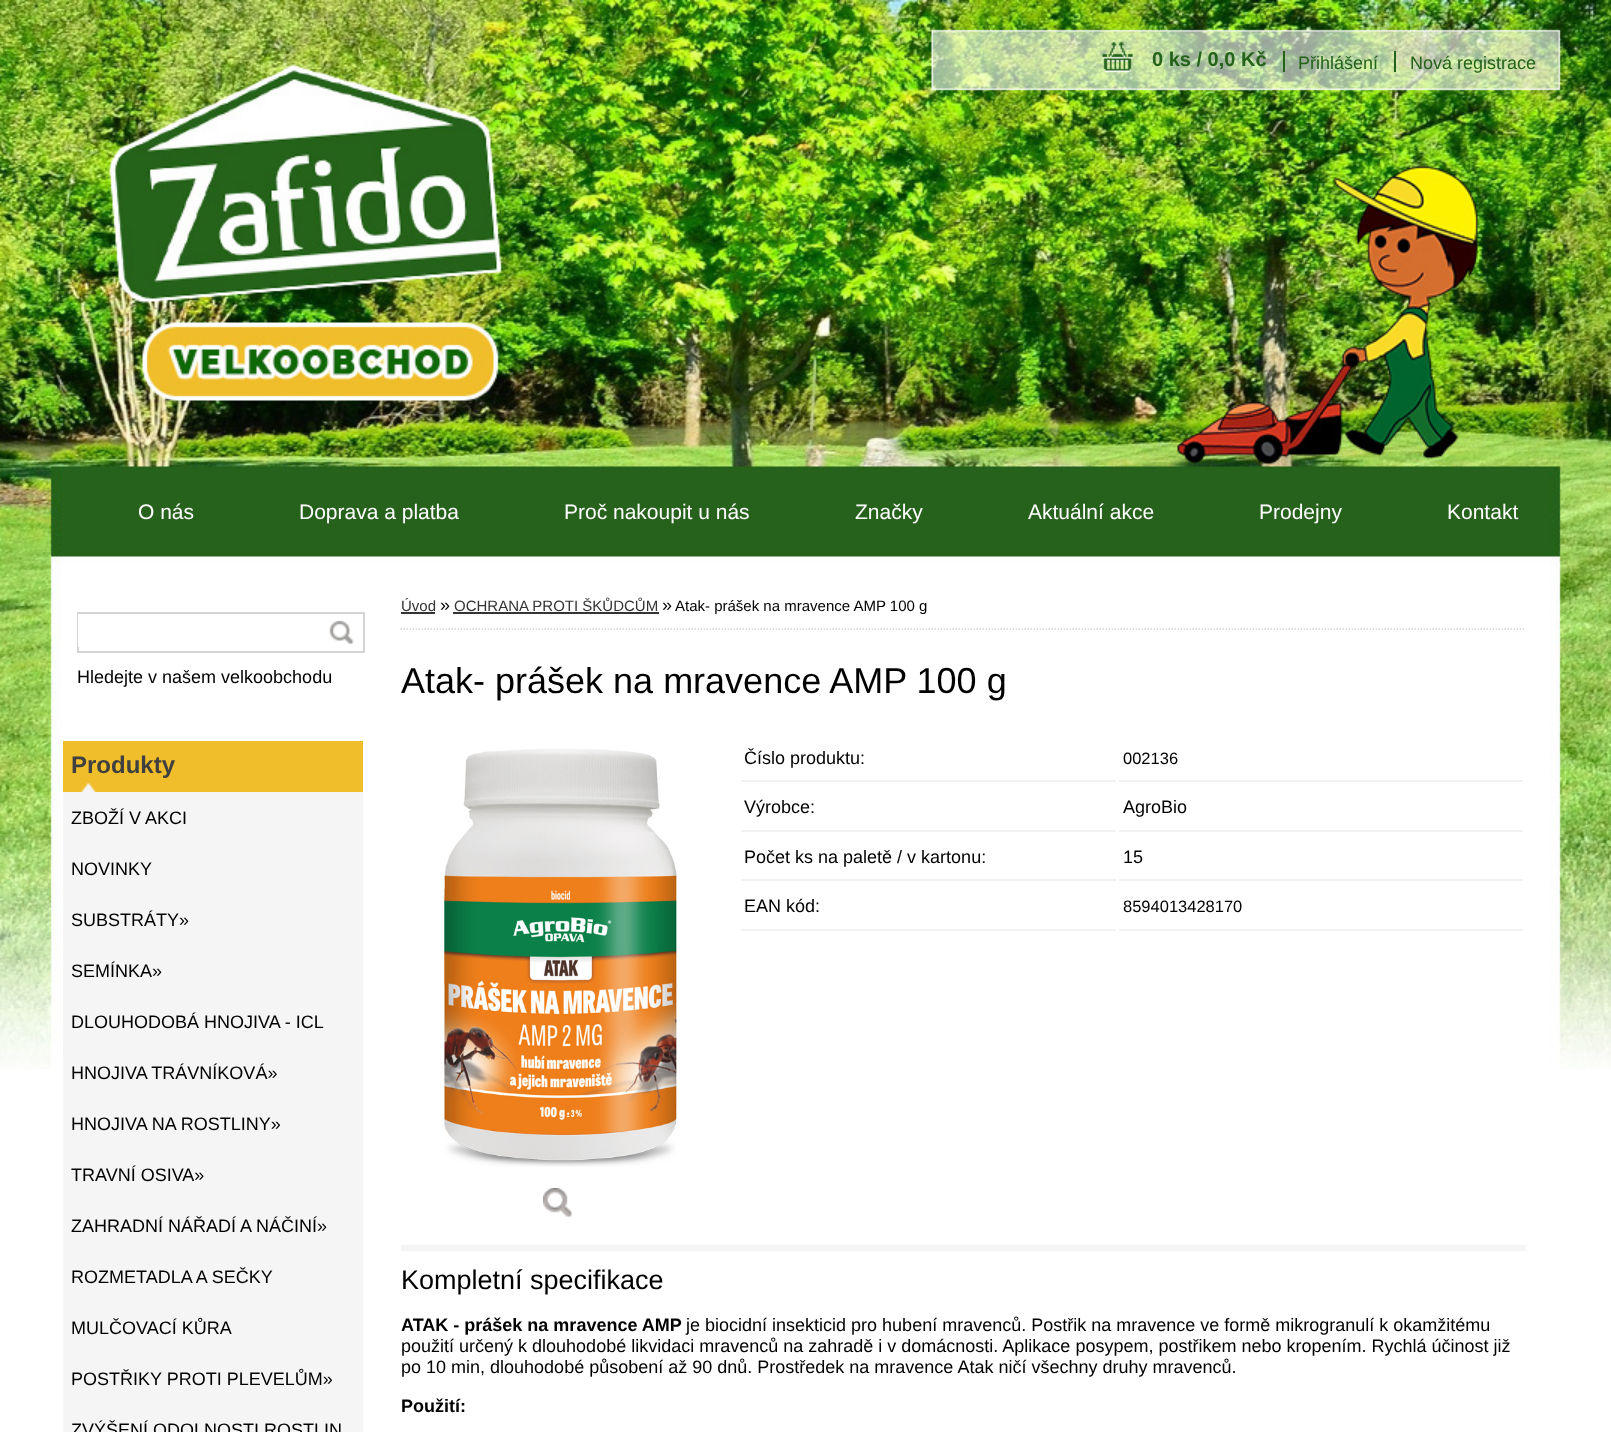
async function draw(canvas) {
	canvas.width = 1611;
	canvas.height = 1432;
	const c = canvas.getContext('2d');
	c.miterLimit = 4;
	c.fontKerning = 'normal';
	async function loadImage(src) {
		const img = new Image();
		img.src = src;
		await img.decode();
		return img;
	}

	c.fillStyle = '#fff';
	c.fillRect(0, 0, 1611, 1432);
	c.drawImage(await loadImage('img1.png'), 0, 0, 1611, 1069);
	c.drawImage(await loadImage('img2.png'), 1102, 41, 31, 32);
	c.font = 'bold 20px Liberation Sans';
	c.fillStyle = '#25621a';
	c.fillText('0 ks / 0,0 Kč', 1152, 66);
	c.fillRect(1283, 51, 2, 21);
	c.font = '18px Liberation Sans';
	c.fillText('Přihlášení', 1298, 69);
	c.fillRect(1394, 51, 2, 21);
	c.fillText('Nová registrace', 1410, 69);
	c.font = '21px Liberation Sans';
	c.fillStyle = '#fff';
	for (const [text, x, y] of [
		['O nás', 138, 519],
		['Doprava a platba', 299, 519],
		['Proč nakoupit u nás', 564, 519],
		['Značky', 855, 519],
		['Aktuální akce', 1028, 519],
		['Prodejny', 1259, 519],
		['Kontakt', 1447, 519],
	]) {
		c.fillText(text, x, y);
	}
	c.strokeStyle = '#d4d4d4';
	c.lineWidth = 2;
	c.strokeRect(78, 613, 286, 39);
	c.fillRect(78, 614, 1, 33);
	c.drawImage(await loadImage('img3.png'), 329, 620, 25, 25);
	c.font = '18px Liberation Sans';
	c.fillStyle = '#000';
	c.fillText('Hledejte v našem velkoobchodu', 77, 683);
	c.drawImage(await loadImage('img4.png'), 63, 741, 300, 51);
	c.font = 'bold 24px Liberation Sans';
	c.fillStyle = '#404040';
	c.fillText('Produkty', 71, 773);
	c.fillStyle = '#f5f5f5';
	c.fillRect(63, 792, 300, 640);
	c.font = '18px Liberation Sans';
	c.fillStyle = '#000';
	for (const [text, x, y] of [
		['ZBOŽÍ V AKCI', 71, 824],
		['NOVINKY', 71, 875],
		['SUBSTRÁTY»', 71, 926],
		['SEMÍNKA»', 71, 977],
		['DLOUHODOBÁ HNOJIVA - ICL', 71, 1028],
		['HNOJIVA TRÁVNÍKOVÁ»', 71, 1079],
		['HNOJIVA NA ROSTLINY»', 71, 1130],
		['TRAVNÍ OSIVA»', 71, 1181],
		['ZAHRADNÍ NÁŘADÍ A NÁČINÍ»', 71, 1232],
		['ROZMETADLA A SEČKY', 71, 1283],
		['MULČOVACÍ KŮRA', 71, 1334],
		['POSTŘIKY PROTI PLEVELŮM»', 71, 1385],
		['ZVÝŠENÍ ODOLNOSTI ROSTLIN', 71, 1436],
	]) {
		c.fillText(text, x, y);
	}
	c.beginPath();
	c.moveTo(400.5, 629);
	c.lineTo(1525.5, 629);
	c.strokeStyle = '#d3d5da';
	c.lineWidth = 1.5;
	c.setLineDash([1.5, 1.5]);
	c.stroke();
	c.font = '15px Liberation Sans';
	c.fillStyle = '#343434';
	c.fillText('Úvod', 401, 611);
	c.fillRect(401, 612, 34, 2);
	c.font = '18px Liberation Sans';
	c.fillStyle = '#000';
	c.fillText('»', 440, 611);
	c.font = '15px Liberation Sans';
	c.fillStyle = '#343434';
	c.fillText('OCHRANA PROTI ŠKŮDCŮM', 454, 611);
	c.fillRect(453, 612, 206, 2);
	c.font = '18px Liberation Sans';
	c.fillStyle = '#000';
	c.fillText('»', 662, 611);
	c.font = '15px Liberation Sans';
	c.fillText('Atak- prášek na mravence AMP 100 g', 675, 611);
	c.font = '36px Liberation Sans';
	c.fillText('Atak- prášek na mravence AMP 100 g', 401, 693);
	c.drawImage(await loadImage('img5.png'), 444, 749, 233, 418);
	c.drawImage(await loadImage('img6.png'), 543, 1188, 29, 30);
	c.fillStyle = '#f2f2f2';
	c.fillRect(741, 780, 375, 2);
	c.font = '18px Liberation Sans';
	c.fillStyle = '#000';
	c.fillText('Číslo produktu:', 744, 764);
	c.fillStyle = '#f2f2f2';
	c.fillRect(1119, 780, 404, 2);
	c.font = '16.5px Liberation Sans';
	c.fillStyle = '#000';
	c.fillText('002136', 1123, 764);
	c.fillStyle = '#f2f2f2';
	c.fillRect(741, 830, 375, 2);
	c.font = '18px Liberation Sans';
	c.fillStyle = '#000';
	c.fillText('Výrobce:', 744, 813);
	c.fillStyle = '#f2f2f2';
	c.fillRect(1119, 830, 404, 2);
	c.fillStyle = '#000';
	c.fillText('AgroBio', 1123, 813);
	c.fillStyle = '#f2f2f2';
	c.fillRect(741, 879, 375, 2);
	c.fillStyle = '#000';
	c.fillText('Počet ks na paletě / v kartonu:', 744, 863);
	c.fillStyle = '#f2f2f2';
	c.fillRect(1119, 879, 404, 2);
	c.fillStyle = '#000';
	c.fillText('15', 1123, 863);
	c.fillStyle = '#f2f2f2';
	c.fillRect(741, 929, 375, 2);
	c.fillStyle = '#000';
	c.fillText('EAN kód:', 744, 912);
	c.fillStyle = '#f2f2f2';
	c.fillRect(1119, 929, 404, 2);
	c.font = '16.5px Liberation Sans';
	c.fillStyle = '#000';
	c.fillText('8594013428170', 1123, 912);
	c.fillStyle = '#f5f5f5';
	c.fillRect(401, 1245, 1125, 6);
	c.font = '27px Liberation Sans';
	c.fillStyle = '#000';
	c.fillText('Kompletní specifikace', 401, 1289);
	c.font = 'bold 18px Liberation Sans';
	c.fillText('ATAK - prášek na mravence AMP', 401, 1331);
	c.font = '18px Liberation Sans';
	for (const [text, x, y] of [
		['je biocidní insekticid pro hubení mravenců. Postřik na mravence ve formě mikrogranulí k okamžitému', 686, 1331],
		['použití určený k dlouhodobé likvidaci mravenců na zahradě i v domácnosti. Aplikace posypem, postřikem nebo kropením. Rychlá účinost již', 401, 1352],
		['po 10 min, dlouhodobé působení až 90 dnů. Prostředek na mravence Atak ničí všechny druhy mravenců.', 401, 1373],
	]) {
		c.fillText(text, x, y);
	}
	c.font = 'bold 18px Liberation Sans';
	c.fillText('Použití:', 401, 1412);
}

draw(document.querySelector('canvas'));
